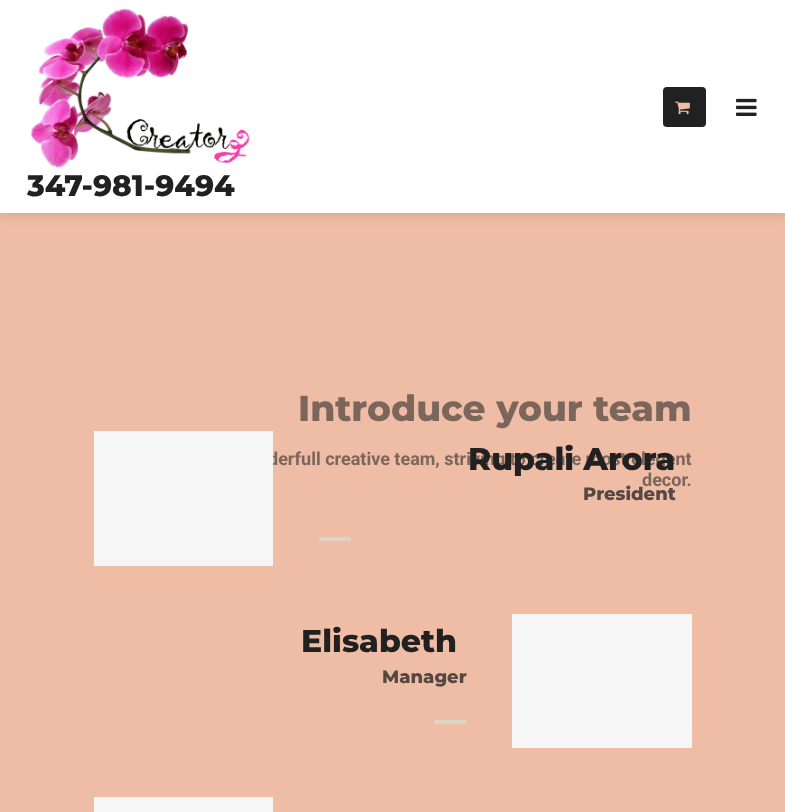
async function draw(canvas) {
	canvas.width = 785;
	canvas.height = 812;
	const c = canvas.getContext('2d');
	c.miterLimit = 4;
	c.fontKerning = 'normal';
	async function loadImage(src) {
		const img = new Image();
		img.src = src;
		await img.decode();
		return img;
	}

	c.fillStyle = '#efbca5';
	c.fillRect(0, 0, 785, 812);
	c.fillStyle = '#0000001f';
	c.filter = 'blur(6px)';
	c.beginPath();
	c.rect(0, 2, 785, 213);
	c.fill();
	c.filter = 'none';
	c.fillStyle = '#fff';
	c.fillRect(0, 0, 785, 213);
	c.fillStyle = '#212121';
	c.beginPath();
	c.roundRect(663, 87, 43, 40, 4);
	c.fill();
	c.drawImage(await loadImage('img1.png'), 675, 101, 15, 14);
	c.drawImage(await loadImage('img2.png'), 736, 98, 21, 18);
	c.drawImage(await loadImage('img3.png'), 30, 8, 220, 160);
	c.font = '100 29.5px Montserrat';
	c.fillText('347-981-9494', 27, 196);
	c.font = '100 36px Montserrat';
	c.fillStyle = '#7c665c';
	c.fillText('Introduce your team', 298, 421);
	c.font = 'bold 18px Roboto';
	c.fillText('derfull creative team, striving to create most elegent', 268, 465);
	c.fillText('decor.', 642, 486);
	c.fillStyle = '#f6f6f6';
	c.fillRect(94, 431, 179, 135);
	c.font = '100 31.5px Montserrat';
	c.fillStyle = '#212121';
	c.fillText('Rupali Arora', 468, 470);
	c.font = '100 18px Montserrat';
	c.fillStyle = '#554842';
	c.fillText('President', 583, 500);
	c.fillStyle = '#dcd4c2';
	c.fillRect(319, 537, 32, 4);
	c.font = '100 31.5px Montserrat';
	c.fillStyle = '#212121';
	c.fillText('Elisabeth', 301, 652);
	c.font = '100 18px Montserrat';
	c.fillStyle = '#554842';
	c.fillText('Manager', 382, 683);
	for (const [x, y, w, h, color] of [
		[434, 720, 32, 4, '#dcd4c2'],
		[512, 614, 180, 134, '#f6f6f6'],
		[94, 797, 179, 15, '#f6f6f6'],
	]) {
		c.fillStyle = color;
		c.fillRect(x, y, w, h);
	}
}

draw(document.querySelector('canvas'));
